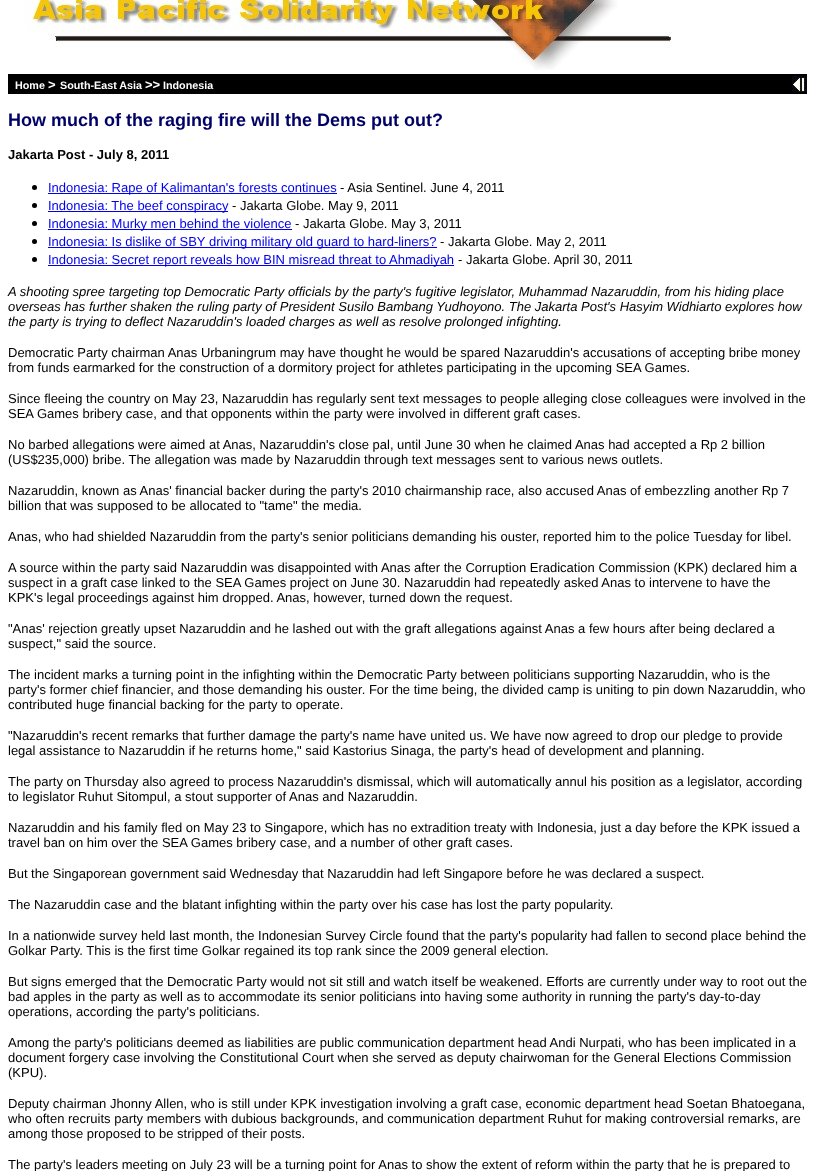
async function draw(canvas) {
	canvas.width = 815;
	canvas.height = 1171;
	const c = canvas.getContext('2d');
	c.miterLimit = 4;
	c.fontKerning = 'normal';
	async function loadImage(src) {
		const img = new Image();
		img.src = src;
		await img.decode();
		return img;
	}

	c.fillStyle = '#fff';
	c.fillRect(0, 0, 815, 1171);
	c.drawImage(await loadImage('img1.png'), 24, 0, 647, 70);
	c.fillStyle = '#000';
	c.fillRect(8, 74, 799, 20);
	c.font = 'bold 10.75px Liberation Sans';
	c.fillStyle = '#fff';
	c.fillText('Home', 15, 89);
	c.font = 'bold 13px Liberation Sans';
	c.fillText('>', 48, 89);
	c.font = 'bold 10.75px Liberation Sans';
	c.fillText('South-East Asia', 60, 89);
	c.font = 'bold 13px Liberation Sans';
	c.fillText('>>', 145, 89);
	c.font = 'bold 10.75px Liberation Sans';
	c.fillText('Indonesia', 163, 89);
	c.drawImage(await loadImage('img2.png'), 792, 76, 15, 16);
	c.font = 'bold 18px Liberation Sans';
	c.fillStyle = '#006';
	c.fillText('How much of the raging fire will the Dems put out?', 8, 126);
	c.font = 'bold 13px Liberation Sans';
	c.fillStyle = '#000';
	c.fillText('Jakarta Post - July 8, 2011', 8, 159);
	c.beginPath();
	c.arc(34.5, 187.5, 2.5, 0, 2 * Math.PI);
	c.fill();
	c.fillStyle = '#00e';
	c.fillRect(48, 193, 289, 1);
	c.font = '13px Liberation Sans';
	c.fillText('Indonesia: Rape of Kalimantan\'s forests continues', 48, 192);
	c.fillStyle = '#000';
	c.fillText('- Asia Sentinel. June 4, 2011', 340, 192);
	c.beginPath();
	c.arc(34.5, 205.5, 2.5, 0, 2 * Math.PI);
	c.fill();
	c.fillStyle = '#00e';
	c.fillRect(48, 211, 180, 1);
	c.fillText('Indonesia: The beef conspiracy', 48, 210);
	c.fillStyle = '#000';
	c.fillText('- Jakarta Globe. May 9, 2011', 232, 210);
	c.beginPath();
	c.arc(34.5, 223.5, 2.5, 0, 2 * Math.PI);
	c.fill();
	c.fillStyle = '#00e';
	c.fillRect(48, 229, 244, 1);
	c.fillText('Indonesia: Murky men behind the violence', 48, 228);
	c.fillStyle = '#000';
	c.fillText('- Jakarta Globe. May 3, 2011', 295, 228);
	c.beginPath();
	c.arc(34.5, 241.5, 2.5, 0, 2 * Math.PI);
	c.fill();
	c.fillStyle = '#00e';
	c.fillRect(48, 247, 389, 1);
	c.fillText('Indonesia: Is dislike of SBY driving military old guard to hard-liners?', 48, 246);
	c.fillStyle = '#000';
	c.fillText('- Jakarta Globe. May 2, 2011', 440, 246);
	c.beginPath();
	c.arc(34.5, 259.5, 2.5, 0, 2 * Math.PI);
	c.fill();
	c.fillStyle = '#00e';
	c.fillRect(48, 265, 406, 1);
	c.fillText('Indonesia: Secret report reveals how BIN misread threat to Ahmadiyah', 48, 264);
	c.fillStyle = '#000';
	c.fillText('- Jakarta Globe. April 30, 2011', 458, 264);
	c.font = 'italic 13px Liberation Sans';
	for (const [text, x, y] of [
		['A shooting spree targeting top Democratic Party officials by the party\'s fugitive legislator, Muhammad Nazaruddin, from his hiding place', 8, 296],
		['overseas has further shaken the ruling party of President Susilo Bambang Yudhoyono. The Jakarta Post\'s Hasyim Widhiarto explores how', 8, 311],
		['the party is trying to deflect Nazaruddin\'s loaded charges as well as resolve prolonged infighting.', 8, 326],
	]) {
		c.fillText(text, x, y);
	}
	c.font = '13px Liberation Sans';
	for (const [text, x, y] of [
		['Democratic Party chairman Anas Urbaningrum may have thought he would be spared Nazaruddin\'s accusations of accepting bribe money', 8, 357],
		['from funds earmarked for the construction of a dormitory project for athletes participating in the upcoming SEA Games.', 8, 372],
		['Since fleeing the country on May 23, Nazaruddin has regularly sent text messages to people alleging close colleagues were involved in the', 8, 403],
		['SEA Games bribery case, and that opponents within the party were involved in different graft cases.', 8, 418],
		['No barbed allegations were aimed at Anas, Nazaruddin\'s close pal, until June 30 when he claimed Anas had accepted a Rp 2 billion', 8, 449],
		['(US$235,000) bribe. The allegation was made by Nazaruddin through text messages sent to various news outlets.', 8, 464],
		['Nazaruddin, known as Anas\' financial backer during the party\'s 2010 chairmanship race, also accused Anas of embezzling another Rp 7', 8, 495],
		['billion that was supposed to be allocated to "tame" the media.', 8, 510],
		['Anas, who had shielded Nazaruddin from the party\'s senior politicians demanding his ouster, reported him to the police Tuesday for libel.', 8, 541],
		['A source within the party said Nazaruddin was disappointed with Anas after the Corruption Eradication Commission (KPK) declared him a', 8, 572],
		['suspect in a graft case linked to the SEA Games project on June 30. Nazaruddin had repeatedly asked Anas to intervene to have the', 8, 587],
		['KPK\'s legal proceedings against him dropped. Anas, however, turned down the request.', 8, 602],
		['"Anas\' rejection greatly upset Nazaruddin and he lashed out with the graft allegations against Anas a few hours after being declared a', 8, 633],
		['suspect," said the source.', 8, 648],
		['The incident marks a turning point in the infighting within the Democratic Party between politicians supporting Nazaruddin, who is the', 8, 679],
		['party\'s former chief financier, and those demanding his ouster. For the time being, the divided camp is uniting to pin down Nazaruddin, who', 8, 694],
		['contributed huge financial backing for the party to operate.', 8, 709],
		['"Nazaruddin\'s recent remarks that further damage the party\'s name have united us. We have now agreed to drop our pledge to provide', 8, 740],
		['legal assistance to Nazaruddin if he returns home," said Kastorius Sinaga, the party\'s head of development and planning.', 8, 755],
		['The party on Thursday also agreed to process Nazaruddin\'s dismissal, which will automatically annul his position as a legislator, according', 8, 786],
		['to legislator Ruhut Sitompul, a stout supporter of Anas and Nazaruddin.', 8, 801],
		['Nazaruddin and his family fled on May 23 to Singapore, which has no extradition treaty with Indonesia, just a day before the KPK issued a', 8, 832],
		['travel ban on him over the SEA Games bribery case, and a number of other graft cases.', 8, 847],
		['But the Singaporean government said Wednesday that Nazaruddin had left Singapore before he was declared a suspect.', 8, 878],
		['The Nazaruddin case and the blatant infighting within the party over his case has lost the party popularity.', 8, 909],
		['In a nationwide survey held last month, the Indonesian Survey Circle found that the party\'s popularity had fallen to second place behind the', 8, 940],
		['Golkar Party. This is the first time Golkar regained its top rank since the 2009 general election.', 8, 955],
		['But signs emerged that the Democratic Party would not sit still and watch itself be weakened. Efforts are currently under way to root out the', 8, 986],
		['bad apples in the party as well as to accommodate its senior politicians into having some authority in running the party\'s day-to-day', 8, 1001],
		['operations, according the party\'s politicians.', 8, 1016],
		['Among the party\'s politicians deemed as liabilities are public communication department head Andi Nurpati, who has been implicated in a', 8, 1047],
		['document forgery case involving the Constitutional Court when she served as deputy chairwoman for the General Elections Commission', 8, 1062],
		['(KPU).', 8, 1077],
		['Deputy chairman Jhonny Allen, who is still under KPK investigation involving a graft case, economic department head Soetan Bhatoegana,', 8, 1108],
		['who often recruits party members with dubious backgrounds, and communication department Ruhut for making controversial remarks, are', 8, 1123],
		['among those proposed to be stripped of their posts.', 8, 1138],
		['The party\'s leaders meeting on July 23 will be a turning point for Anas to show the extent of reform within the party that he is prepared to', 8, 1169],
	]) {
		c.fillText(text, x, y);
	}
}

draw(document.querySelector('canvas'));
